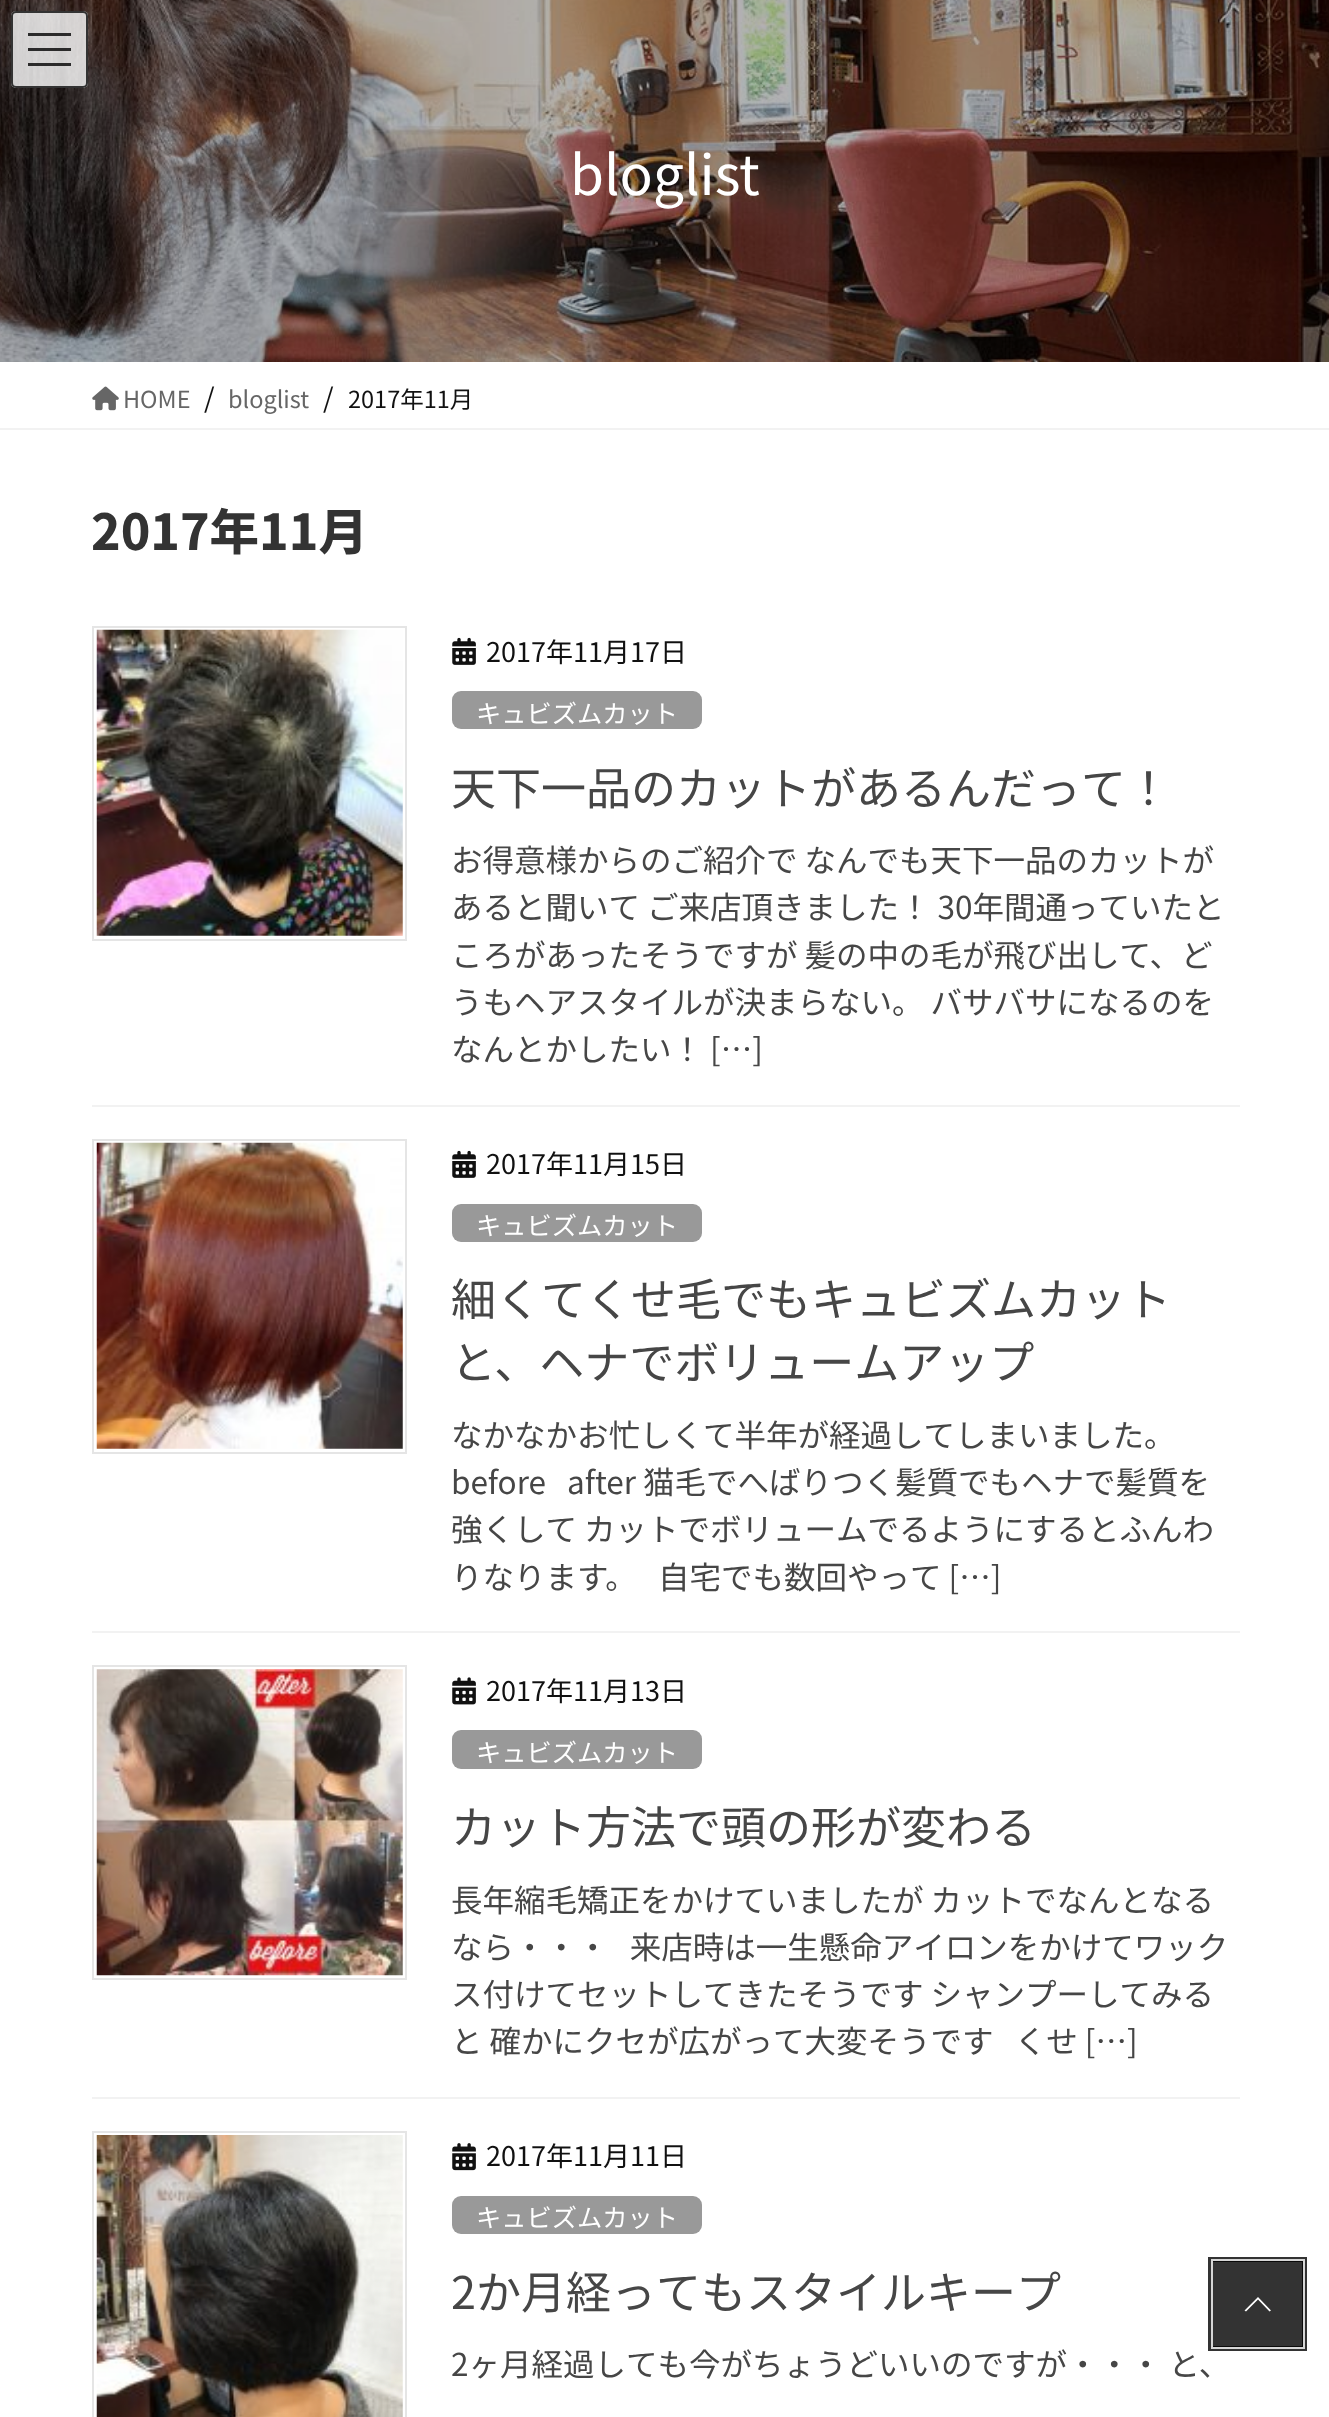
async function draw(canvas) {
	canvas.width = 1329;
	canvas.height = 2417;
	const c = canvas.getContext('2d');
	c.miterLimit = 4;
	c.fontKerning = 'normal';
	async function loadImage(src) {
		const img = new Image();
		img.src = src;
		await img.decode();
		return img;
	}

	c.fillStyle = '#fff';
	c.fillRect(0, 0, 1329, 2417);
	c.drawImage(await loadImage('img1.png'), 0, 0, 1329, 362);
	c.fillStyle = '#ffffffcc';
	c.beginPath();
	c.roundRect(11, 11, 77, 77, 5);
	c.fill();
	for (const [x, y, w, h, color] of [
		[28, 33, 43, 3, '#000000cc'],
		[28, 48, 43, 3, '#000000cc'],
		[28, 63, 43, 3, '#000000cc'],
	]) {
		c.fillStyle = color;
		c.fillRect(x, y, w, h);
	}
	c.beginPath();
	c.roundRect(12, 12, 75, 75, 4);
	c.strokeStyle = '#333';
	c.lineWidth = 2;
	c.stroke();
	c.font = '55px Noto Sans JP';
	c.fillStyle = '#fff';
	c.fillText('bloglist', 570, 195);
	c.fillStyle = '#f2f2f2';
	c.fillRect(0, 428, 1329, 2);
	c.drawImage(await loadImage('img2.png'), 92, 386, 27, 25);
	c.font = '23.5px Noto Sans JP';
	c.fillStyle = '#666';
	c.fillText('HOME', 123, 408);
	c.font = '27px Noto Sans JP';
	c.fillStyle = '#111';
	c.fillText('/', 204, 408);
	c.font = '23.5px Noto Sans JP';
	c.fillStyle = '#666';
	c.fillText('bloglist', 228, 408);
	c.font = '27px Noto Sans JP';
	c.fillStyle = '#111';
	c.fillText('/', 323, 408);
	c.font = '23.5px Noto Sans JP';
	c.fillText('2017年11月', 348, 408);
	c.font = '800 49.5px Noto Sans JP';
	c.fillStyle = '#333';
	c.fillText('2017年11月', 91, 550);
	c.fillStyle = '#f2f2f2';
	c.fillRect(92, 1105, 1148, 2);
	c.strokeStyle = '#e5e5e5';
	c.strokeRect(93, 627, 313, 313);
	c.drawImage(await loadImage('img3.png'), 96, 629, 307, 307);
	c.drawImage(await loadImage('img4.png'), 452, 637, 24, 28);
	c.font = '27px Noto Sans JP';
	c.fillStyle = '#111';
	c.fillText('2017年11月17日', 486, 662);
	c.fillStyle = '#999';
	c.beginPath();
	c.roundRect(452, 691, 250, 38, 9);
	c.fill();
	c.font = '25.25px Noto Sans JP';
	c.fillStyle = '#fff';
	c.fillText('キュビズムカット', 476, 723);
	c.font = '45px Noto Sans JP';
	c.fillStyle = '#464646';
	c.fillText('天下一品のカットがあるんだって！', 451, 805);
	c.font = '31.5px Noto Sans JP';
	for (const [text, x, y] of [
		['お得意様からのご紹介で なんでも天下一品のカットが', 451, 872],
		['あると聞いて ご来店頂きました！ 30年間通っていたと', 451, 919],
		['ころがあったそうですが 髪の中の毛が飛び出して、ど', 451, 967],
		['うもヘアスタイルが決まらない。 バサバサになるのを', 451, 1014],
		['なんとかしたい！ […]', 451, 1061],
	]) {
		c.fillText(text, x, y);
	}
	c.fillStyle = '#f2f2f2';
	c.fillRect(92, 1631, 1148, 2);
	c.strokeRect(93, 1140, 313, 313);
	c.drawImage(await loadImage('img5.png'), 96, 1142, 307, 307);
	c.drawImage(await loadImage('img4.png'), 452, 1150, 24, 28);
	c.font = '27px Noto Sans JP';
	c.fillStyle = '#111';
	c.fillText('2017年11月15日', 486, 1174);
	c.fillStyle = '#999';
	c.beginPath();
	c.roundRect(452, 1204, 250, 38, 9);
	c.fill();
	c.font = '25.25px Noto Sans JP';
	c.fillStyle = '#fff';
	c.fillText('キュビズムカット', 476, 1235);
	c.font = '45px Noto Sans JP';
	c.fillStyle = '#464646';
	c.fillText('細くてくせ毛でもキュビズムカット', 451, 1316);
	c.fillText('と、ヘナでボリュームアップ', 451, 1379);
	c.font = '31.5px Noto Sans JP';
	for (const [text, x, y] of [
		['なかなかお忙しくて半年が経過してしまいました。', 451, 1447],
		['before   after 猫毛でへばりつく髪質でもヘナで髪質を', 451, 1494],
		['強くして カットでボリュームでるようにするとふんわ', 451, 1541],
		['りなります。   自宅でも数回やって […]', 451, 1589],
	]) {
		c.fillText(text, x, y);
	}
	c.fillStyle = '#f2f2f2';
	c.fillRect(92, 2097, 1148, 2);
	c.strokeRect(93, 1666, 313, 313);
	c.drawImage(await loadImage('img6.png'), 96, 1669, 307, 307);
	c.drawImage(await loadImage('img7.png'), 452, 1677, 24, 28);
	c.font = '27px Noto Sans JP';
	c.fillStyle = '#111';
	c.fillText('2017年11月13日', 486, 1701);
	c.fillStyle = '#999';
	c.beginPath();
	c.roundRect(452, 1730, 250, 39, 9);
	c.fill();
	c.font = '25.25px Noto Sans JP';
	c.fillStyle = '#fff';
	c.fillText('キュビズムカット', 476, 1762);
	c.font = '45px Noto Sans JP';
	c.fillStyle = '#464646';
	c.fillText('カット方法で頭の形が変わる', 451, 1844);
	c.font = '31.5px Noto Sans JP';
	for (const [text, x, y] of [
		['長年縮毛矯正をかけていましたが カットでなんとなる', 451, 1912],
		['なら・・・   来店時は一生懸命アイロンをかけてワック', 451, 1959],
		['ス付けてセットしてきたそうです シャンプーしてみる', 451, 2006],
		['と 確かにクセが広がって大変そうです   くせ […]', 451, 2053],
	]) {
		c.fillText(text, x, y);
	}
	c.strokeRect(93, 2132, 313, 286);
	c.drawImage(await loadImage('img8.png'), 96, 2135, 307, 282);
	c.drawImage(await loadImage('img9.png'), 452, 2143, 24, 28);
	c.font = '27px Noto Sans JP';
	c.fillStyle = '#111';
	c.fillText('2017年11月11日', 486, 2166);
	c.fillStyle = '#999';
	c.beginPath();
	c.roundRect(452, 2196, 250, 38, 9);
	c.fill();
	c.font = '25.25px Noto Sans JP';
	c.fillStyle = '#fff';
	c.fillText('キュビズムカット', 476, 2227);
	c.font = '45px Noto Sans JP';
	c.fillStyle = '#464646';
	c.fillText('2か月経ってもスタイルキープ', 451, 2309);
	c.font = '31.5px Noto Sans JP';
	c.fillText('2ヶ月経過しても今がちょうどいいのですが・・・ と、', 451, 2376);
	c.strokeStyle = '#333';
	c.lineWidth = 5;
	c.strokeRect(1210.5, 2259.5, 94, 89);
	c.strokeStyle = '#d6d6d6';
	c.lineWidth = 2;
	c.strokeRect(1212, 2260, 92, 88);
	c.fillStyle = '#000000cc';
	c.fillRect(1213, 2261, 90, 86);
	c.fillStyle = '#fff';
	c.beginPath();
	c.moveTo(1271, 2310.5);
	c.lineTo(1269.5, 2311.5);
	c.lineTo(1258, 2299.5);
	c.lineTo(1246, 2311.5);
	c.lineTo(1244.5, 2310.5);
	c.lineTo(1258, 2297);
	c.closePath();
	c.fill();
}

draw(document.querySelector('canvas'));
